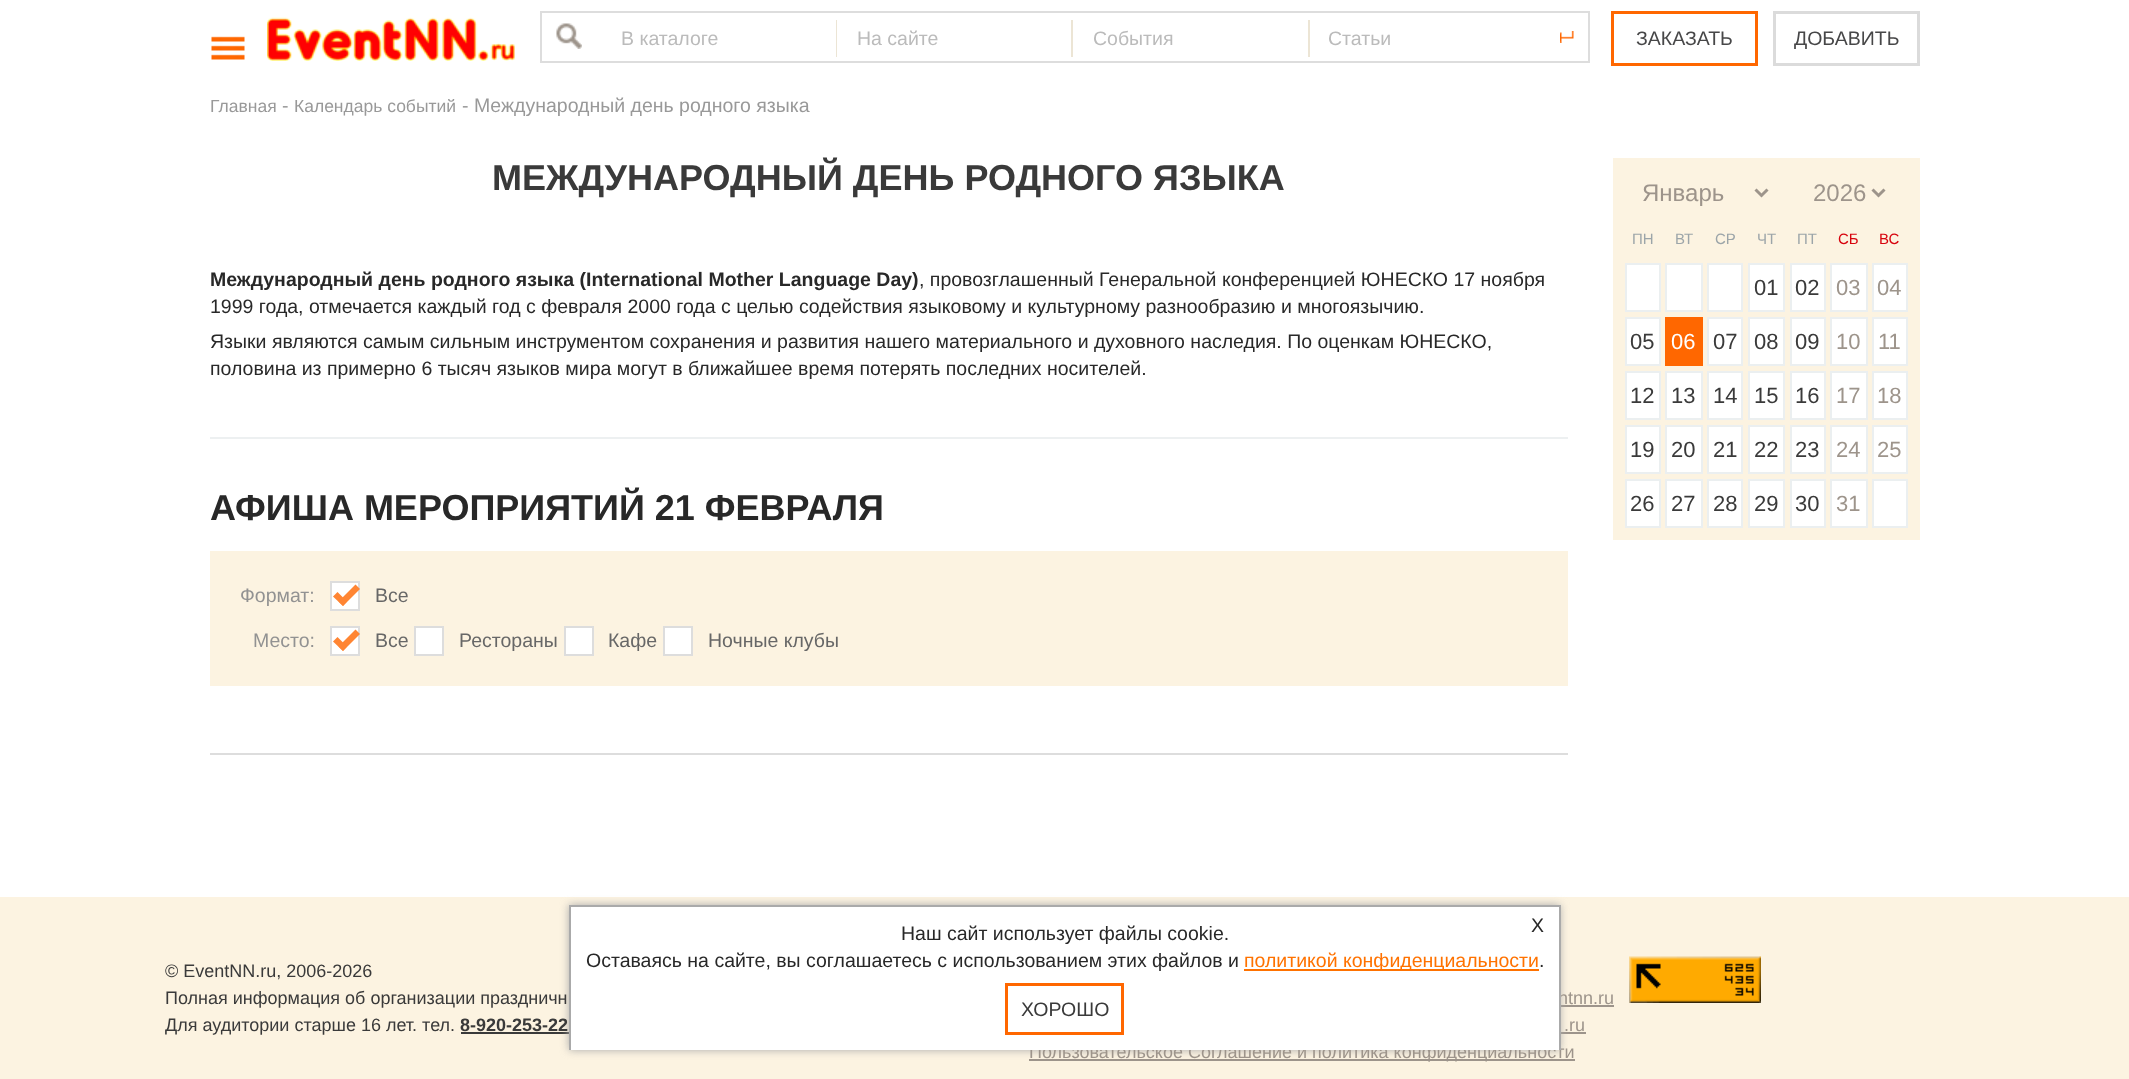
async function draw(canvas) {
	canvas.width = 2129;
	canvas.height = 1079;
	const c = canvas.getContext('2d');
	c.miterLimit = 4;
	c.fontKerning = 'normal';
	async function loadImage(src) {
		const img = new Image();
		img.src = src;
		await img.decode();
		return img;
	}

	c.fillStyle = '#fff';
	c.fillRect(0, 0, 2129, 1079);
	c.drawImage(await loadImage('img1.png'), 211, 36, 34, 24);
	c.drawImage(await loadImage('img2.png'), 267, 17, 248, 44);
	c.strokeStyle = '#ddd';
	c.lineWidth = 2;
	c.strokeRect(541, 12, 1048, 50);
	c.drawImage(await loadImage('img3.png'), 556, 23, 26, 26);
	c.fillStyle = '#ece5d5';
	c.fillRect(836, 20, 1, 37);
	c.font = '19.5px Liberation Sans';
	c.fillStyle = '#bbb';
	c.fillText('В каталоге', 621, 45);
	c.fillStyle = '#ece5d5';
	c.fillRect(1071, 20, 2, 37);
	c.fillStyle = '#bbb';
	c.fillText('На сайте', 857, 45);
	c.fillStyle = '#ece5d5';
	c.fillRect(1308, 20, 2, 37);
	c.fillStyle = '#bbb';
	c.fillText('События', 1093, 45);
	c.fillText('Статьи', 1328, 45);
	c.drawImage(await loadImage('img4.png'), 1560, 31, 14, 12);
	c.strokeStyle = '#ff6700';
	c.lineWidth = 3;
	c.strokeRect(1612.5, 12.5, 144, 52);
	c.fillStyle = '#474748';
	c.fillText('ЗАКАЗАТЬ', 1636, 45);
	c.strokeStyle = '#dbdbdb';
	c.strokeRect(1774.5, 12.5, 144, 52);
	c.fillText('ДОБАВИТЬ', 1794, 45);
	c.font = '17.5px Liberation Sans';
	c.fillStyle = '#999';
	c.fillText('Главная', 210, 112);
	c.font = '19.5px Liberation Sans';
	c.fillText('-', 282, 112);
	c.font = '17.5px Liberation Sans';
	c.fillText('Календарь событий', 294, 112);
	c.font = '19.5px Liberation Sans';
	c.fillText('- Международный день родного языка', 462, 112);
	c.font = 'bold 36px Liberation Sans';
	c.fillStyle = '#3a3a3a';
	c.fillText('МЕЖДУНАРОДНЫЙ ДЕНЬ РОДНОГО ЯЗЫКА', 492, 190);
	c.fillStyle = '#edf0f1';
	c.fillRect(210, 437, 1358, 2);
	c.font = 'bold 19.5px Liberation Sans';
	c.fillStyle = '#282828';
	c.fillText('Международный день родного языка (International Mother Language Day)', 210, 286);
	c.font = '19.5px Liberation Sans';
	for (const [text, x, y] of [
		[', провозглашенный Генеральной конференцией ЮНЕСКО 17 ноября', 919, 286],
		['1999 года, отмечается каждый год с февраля 2000 года с целью содействия языковому и культурному разнообразию и многоязычию.', 210, 313],
		['Языки являются самым сильным инструментом сохранения и развития нашего материального и духовного наследия. По оценкам ЮНЕСКО,', 210, 348],
		['половина из примерно 6 тысяч языков мира могут в ближайшее время потерять последних носителей.', 210, 375],
	]) {
		c.fillText(text, x, y);
	}
	c.fillStyle = '#ddd';
	c.fillRect(210, 753, 1358, 2);
	c.font = 'bold 36px Liberation Sans';
	c.fillStyle = '#282828';
	c.fillText('АФИША МЕРОПРИЯТИЙ 21 ФЕВРАЛЯ', 210, 520);
	c.fillStyle = '#fcf3e1';
	c.fillRect(210, 551, 1358, 135);
	c.font = '19.5px Liberation Sans';
	c.fillStyle = '#929292';
	c.fillText('Формат:', 240, 602);
	c.fillStyle = '#fff';
	c.beginPath();
	c.rect(331, 582, 28, 28);
	c.fill();
	c.strokeStyle = '#ddd';
	c.lineWidth = 2;
	c.stroke();
	c.fillStyle = '#ff8533';
	c.beginPath();
	c.moveTo(338.5, 601.5);
	c.lineTo(355.5, 584.5);
	c.lineTo(360, 589);
	c.lineTo(343, 606);
	c.closePath();
	c.fill();
	c.beginPath();
	c.moveTo(333, 596.5);
	c.lineTo(337.5, 592);
	c.lineTo(347, 601.5);
	c.lineTo(343, 606);
	c.closePath();
	c.fill();
	c.fillStyle = '#676767';
	c.fillText('Все', 375, 602);
	c.fillStyle = '#929292';
	c.fillText('Место:', 253, 647);
	c.fillStyle = '#fff';
	c.beginPath();
	c.rect(331, 627, 28, 28);
	c.fill();
	c.stroke();
	c.fillStyle = '#ff8533';
	c.beginPath();
	c.moveTo(338.5, 646.5);
	c.lineTo(355.5, 629.5);
	c.lineTo(360, 634);
	c.lineTo(343, 651);
	c.closePath();
	c.fill();
	c.beginPath();
	c.moveTo(333, 641.5);
	c.lineTo(337.5, 637);
	c.lineTo(347, 646.5);
	c.lineTo(343, 651);
	c.closePath();
	c.fill();
	c.fillStyle = '#676767';
	c.fillText('Все', 375, 647);
	c.fillStyle = '#fff';
	c.beginPath();
	c.rect(415, 627, 28, 28);
	c.fill();
	c.stroke();
	c.fillStyle = '#676767';
	c.fillText('Рестораны', 459, 647);
	c.fillStyle = '#fff';
	c.beginPath();
	c.rect(565, 627, 28, 28);
	c.fill();
	c.stroke();
	c.fillStyle = '#676767';
	c.fillText('Кафе', 608, 647);
	c.fillStyle = '#fff';
	c.beginPath();
	c.rect(664, 627, 28, 28);
	c.fill();
	c.stroke();
	c.fillStyle = '#676767';
	c.fillText('Ночные клубы', 708, 647);
	c.fillStyle = '#fcf3e1';
	c.fillRect(1613, 158, 307, 382);
	c.beginPath();
	c.moveTo(1755.5, 189.5);
	c.lineTo(1761.5, 195.5);
	c.lineTo(1767.5, 189.5);
	c.strokeStyle = '#9d948b';
	c.lineWidth = 3;
	c.stroke();
	c.font = '24px Liberation Sans';
	c.fillStyle = '#9d948b';
	c.fillText('Январь', 1642, 201);
	c.beginPath();
	c.moveTo(1872.5, 189.5);
	c.lineTo(1878.5, 195.5);
	c.lineTo(1884.5, 189.5);
	c.stroke();
	c.fillText('2026', 1813, 201);
	c.font = '15px Liberation Sans';
	c.fillStyle = '#9ca5a9';
	for (const [text, x, y] of [
		['ПН', 1632, 244],
		['ВТ', 1675, 244],
		['СР', 1715, 244],
		['ЧТ', 1757, 244],
		['ПТ', 1797, 244],
	]) {
		c.fillText(text, x, y);
	}
	c.fillStyle = '#d7030d';
	c.fillText('СБ', 1838, 244);
	c.fillText('ВС', 1879, 244);
	c.fillStyle = '#fff';
	c.beginPath();
	c.rect(1626, 264, 34, 47);
	c.fill();
	c.strokeStyle = '#ebeff0';
	c.lineWidth = 2;
	c.stroke();
	c.beginPath();
	c.rect(1666, 264, 36, 47);
	c.fill();
	c.stroke();
	c.beginPath();
	c.rect(1708, 264, 34, 47);
	c.fill();
	c.stroke();
	c.beginPath();
	c.rect(1749, 264, 35, 47);
	c.fill();
	c.stroke();
	c.font = '22px Liberation Sans';
	c.fillStyle = '#3a3a3a';
	c.fillText('01', 1754, 295);
	c.fillStyle = '#fff';
	c.beginPath();
	c.rect(1791, 264, 34, 47);
	c.fill();
	c.stroke();
	c.fillStyle = '#3a3a3a';
	c.fillText('02', 1795, 295);
	c.fillStyle = '#fff';
	c.beginPath();
	c.rect(1831, 264, 36, 47);
	c.fill();
	c.stroke();
	c.fillStyle = '#9d948b';
	c.fillText('03', 1836, 295);
	c.fillStyle = '#fff';
	c.beginPath();
	c.rect(1873, 264, 34, 47);
	c.fill();
	c.stroke();
	c.fillStyle = '#9d948b';
	c.fillText('04', 1877, 295);
	c.fillStyle = '#fff';
	c.beginPath();
	c.rect(1626, 318, 34, 47);
	c.fill();
	c.stroke();
	c.fillStyle = '#3a3a3a';
	c.fillText('05', 1630, 349);
	c.fillStyle = '#ff6700';
	c.fillRect(1665, 317, 38, 49);
	c.fillStyle = '#fff';
	c.fillText('06', 1671, 349);
	c.beginPath();
	c.rect(1708, 318, 34, 47);
	c.fill();
	c.stroke();
	c.fillStyle = '#3a3a3a';
	c.fillText('07', 1713, 349);
	c.fillStyle = '#fff';
	c.beginPath();
	c.rect(1749, 318, 35, 47);
	c.fill();
	c.stroke();
	c.fillStyle = '#3a3a3a';
	c.fillText('08', 1754, 349);
	c.fillStyle = '#fff';
	c.beginPath();
	c.rect(1791, 318, 34, 47);
	c.fill();
	c.stroke();
	c.fillStyle = '#3a3a3a';
	c.fillText('09', 1795, 349);
	c.fillStyle = '#fff';
	c.beginPath();
	c.rect(1831, 318, 36, 47);
	c.fill();
	c.stroke();
	c.fillStyle = '#9d948b';
	c.fillText('10', 1836, 349);
	c.fillStyle = '#fff';
	c.beginPath();
	c.rect(1873, 318, 34, 47);
	c.fill();
	c.stroke();
	c.fillStyle = '#9d948b';
	c.fillText('11', 1878, 349);
	c.fillStyle = '#fff';
	c.beginPath();
	c.rect(1626, 372, 34, 47);
	c.fill();
	c.stroke();
	c.fillStyle = '#3a3a3a';
	c.fillText('12', 1630, 403);
	c.fillStyle = '#fff';
	c.beginPath();
	c.rect(1666, 372, 36, 47);
	c.fill();
	c.stroke();
	c.fillStyle = '#3a3a3a';
	c.fillText('13', 1671, 403);
	c.fillStyle = '#fff';
	c.beginPath();
	c.rect(1708, 372, 34, 47);
	c.fill();
	c.stroke();
	c.fillStyle = '#3a3a3a';
	c.fillText('14', 1713, 403);
	c.fillStyle = '#fff';
	c.beginPath();
	c.rect(1749, 372, 35, 47);
	c.fill();
	c.stroke();
	c.fillStyle = '#3a3a3a';
	c.fillText('15', 1754, 403);
	c.fillStyle = '#fff';
	c.beginPath();
	c.rect(1791, 372, 34, 47);
	c.fill();
	c.stroke();
	c.fillStyle = '#3a3a3a';
	c.fillText('16', 1795, 403);
	c.fillStyle = '#fff';
	c.beginPath();
	c.rect(1831, 372, 36, 47);
	c.fill();
	c.stroke();
	c.fillStyle = '#9d948b';
	c.fillText('17', 1836, 403);
	c.fillStyle = '#fff';
	c.beginPath();
	c.rect(1873, 372, 34, 47);
	c.fill();
	c.stroke();
	c.fillStyle = '#9d948b';
	c.fillText('18', 1877, 403);
	c.fillStyle = '#fff';
	c.beginPath();
	c.rect(1626, 426, 34, 47);
	c.fill();
	c.stroke();
	c.fillStyle = '#3a3a3a';
	c.fillText('19', 1630, 457);
	c.fillStyle = '#fff';
	c.beginPath();
	c.rect(1666, 426, 36, 47);
	c.fill();
	c.stroke();
	c.fillStyle = '#3a3a3a';
	c.fillText('20', 1671, 457);
	c.fillStyle = '#fff';
	c.beginPath();
	c.rect(1708, 426, 34, 47);
	c.fill();
	c.stroke();
	c.fillStyle = '#3a3a3a';
	c.fillText('21', 1713, 457);
	c.fillStyle = '#fff';
	c.beginPath();
	c.rect(1749, 426, 35, 47);
	c.fill();
	c.stroke();
	c.fillStyle = '#3a3a3a';
	c.fillText('22', 1754, 457);
	c.fillStyle = '#fff';
	c.beginPath();
	c.rect(1791, 426, 34, 47);
	c.fill();
	c.stroke();
	c.fillStyle = '#3a3a3a';
	c.fillText('23', 1795, 457);
	c.fillStyle = '#fff';
	c.beginPath();
	c.rect(1831, 426, 36, 47);
	c.fill();
	c.stroke();
	c.fillStyle = '#9d948b';
	c.fillText('24', 1836, 457);
	c.fillStyle = '#fff';
	c.beginPath();
	c.rect(1873, 426, 34, 47);
	c.fill();
	c.stroke();
	c.fillStyle = '#9d948b';
	c.fillText('25', 1877, 457);
	c.fillStyle = '#fff';
	c.beginPath();
	c.rect(1626, 480, 34, 47);
	c.fill();
	c.stroke();
	c.fillStyle = '#3a3a3a';
	c.fillText('26', 1630, 511);
	c.fillStyle = '#fff';
	c.beginPath();
	c.rect(1666, 480, 36, 47);
	c.fill();
	c.stroke();
	c.fillStyle = '#3a3a3a';
	c.fillText('27', 1671, 511);
	c.fillStyle = '#fff';
	c.beginPath();
	c.rect(1708, 480, 34, 47);
	c.fill();
	c.stroke();
	c.fillStyle = '#3a3a3a';
	c.fillText('28', 1713, 511);
	c.fillStyle = '#fff';
	c.beginPath();
	c.rect(1749, 480, 35, 47);
	c.fill();
	c.stroke();
	c.fillStyle = '#3a3a3a';
	c.fillText('29', 1754, 511);
	c.fillStyle = '#fff';
	c.beginPath();
	c.rect(1791, 480, 34, 47);
	c.fill();
	c.stroke();
	c.fillStyle = '#3a3a3a';
	c.fillText('30', 1795, 511);
	c.fillStyle = '#fff';
	c.beginPath();
	c.rect(1831, 480, 36, 47);
	c.fill();
	c.stroke();
	c.fillStyle = '#9d948b';
	c.fillText('31', 1836, 511);
	c.fillStyle = '#fff';
	c.beginPath();
	c.rect(1873, 480, 34, 47);
	c.fill();
	c.stroke();
	for (const [x, y, w, h, color] of [
		[0, 897, 2129, 182, '#fcf3e1'],
		[461, 1032, 108, 2, '#3a3a3a'],
		[1561, 1005, 53, 2, '#9d948b'],
		[1561, 1032, 25, 2, '#9d948b'],
		[1029, 1059, 546, 2, '#9d948b'],
	]) {
		c.fillStyle = color;
		c.fillRect(x, y, w, h);
	}
	c.fillStyle = '#aaa';
	c.filter = 'blur(4px)';
	c.beginPath();
	c.rect(569, 905, 991, 145);
	c.fill();
	c.filter = 'none';
	c.font = '18px Liberation Sans';
	c.fillStyle = '#9d948b';
	c.fillText('Пользовательское Соглашение и политика конфиденциальности', 1029, 1058);
	c.fillStyle = '#fff';
	c.fillRect(571, 907, 988, 143);
	c.fillStyle = '#aaa';
	c.fillRect(569, 905, 991, 2);
	c.fillStyle = '#9d948b';
	c.fillText('ntnn.ru', 1558, 1004);
	c.fillStyle = '#aaa';
	c.fillRect(1559, 905, 2, 145);
	c.fillRect(569, 905, 2, 145);
	c.font = '19.5px Liberation Sans';
	c.fillStyle = '#282828';
	for (const [text, x, y] of [
		['X', 1531, 932],
		['Наш сайт использует файлы cookie.', 901, 940],
		['Оставаясь на сайте, вы соглашаетесь с использованием этих файлов и', 586, 967],
	]) {
		c.fillText(text, x, y);
	}
	c.fillStyle = '#ff7200';
	c.fillRect(1244, 969, 295, 2);
	c.fillText('политикой конфиденциальности', 1244, 967);
	c.fillStyle = '#282828';
	c.fillText('.', 1539, 967);
	c.strokeStyle = '#ff6700';
	c.lineWidth = 3;
	c.strokeRect(1006.5, 984.5, 116, 49);
	c.fillStyle = '#3a3a3a';
	c.fillText('ХОРОШО', 1021, 1016);
	c.font = '18px Liberation Sans';
	for (const [text, x, y] of [
		['© EventNN.ru, 2006-2026', 165, 977],
		['Полная информация об организации праздничн', 165, 1004],
		['Для аудитории старше 16 лет. тел.', 165, 1031],
	]) {
		c.fillText(text, x, y);
	}
	c.font = 'bold 18px Liberation Sans';
	c.fillText('8-920-253-22', 460, 1031);
	c.drawImage(await loadImage('img5.png'), 1629, 956, 132, 47);
	c.font = '18px Liberation Sans';
	c.fillStyle = '#9d948b';
	c.fillText('.ru', 1564, 1031);
}

draw(document.querySelector('canvas'));
